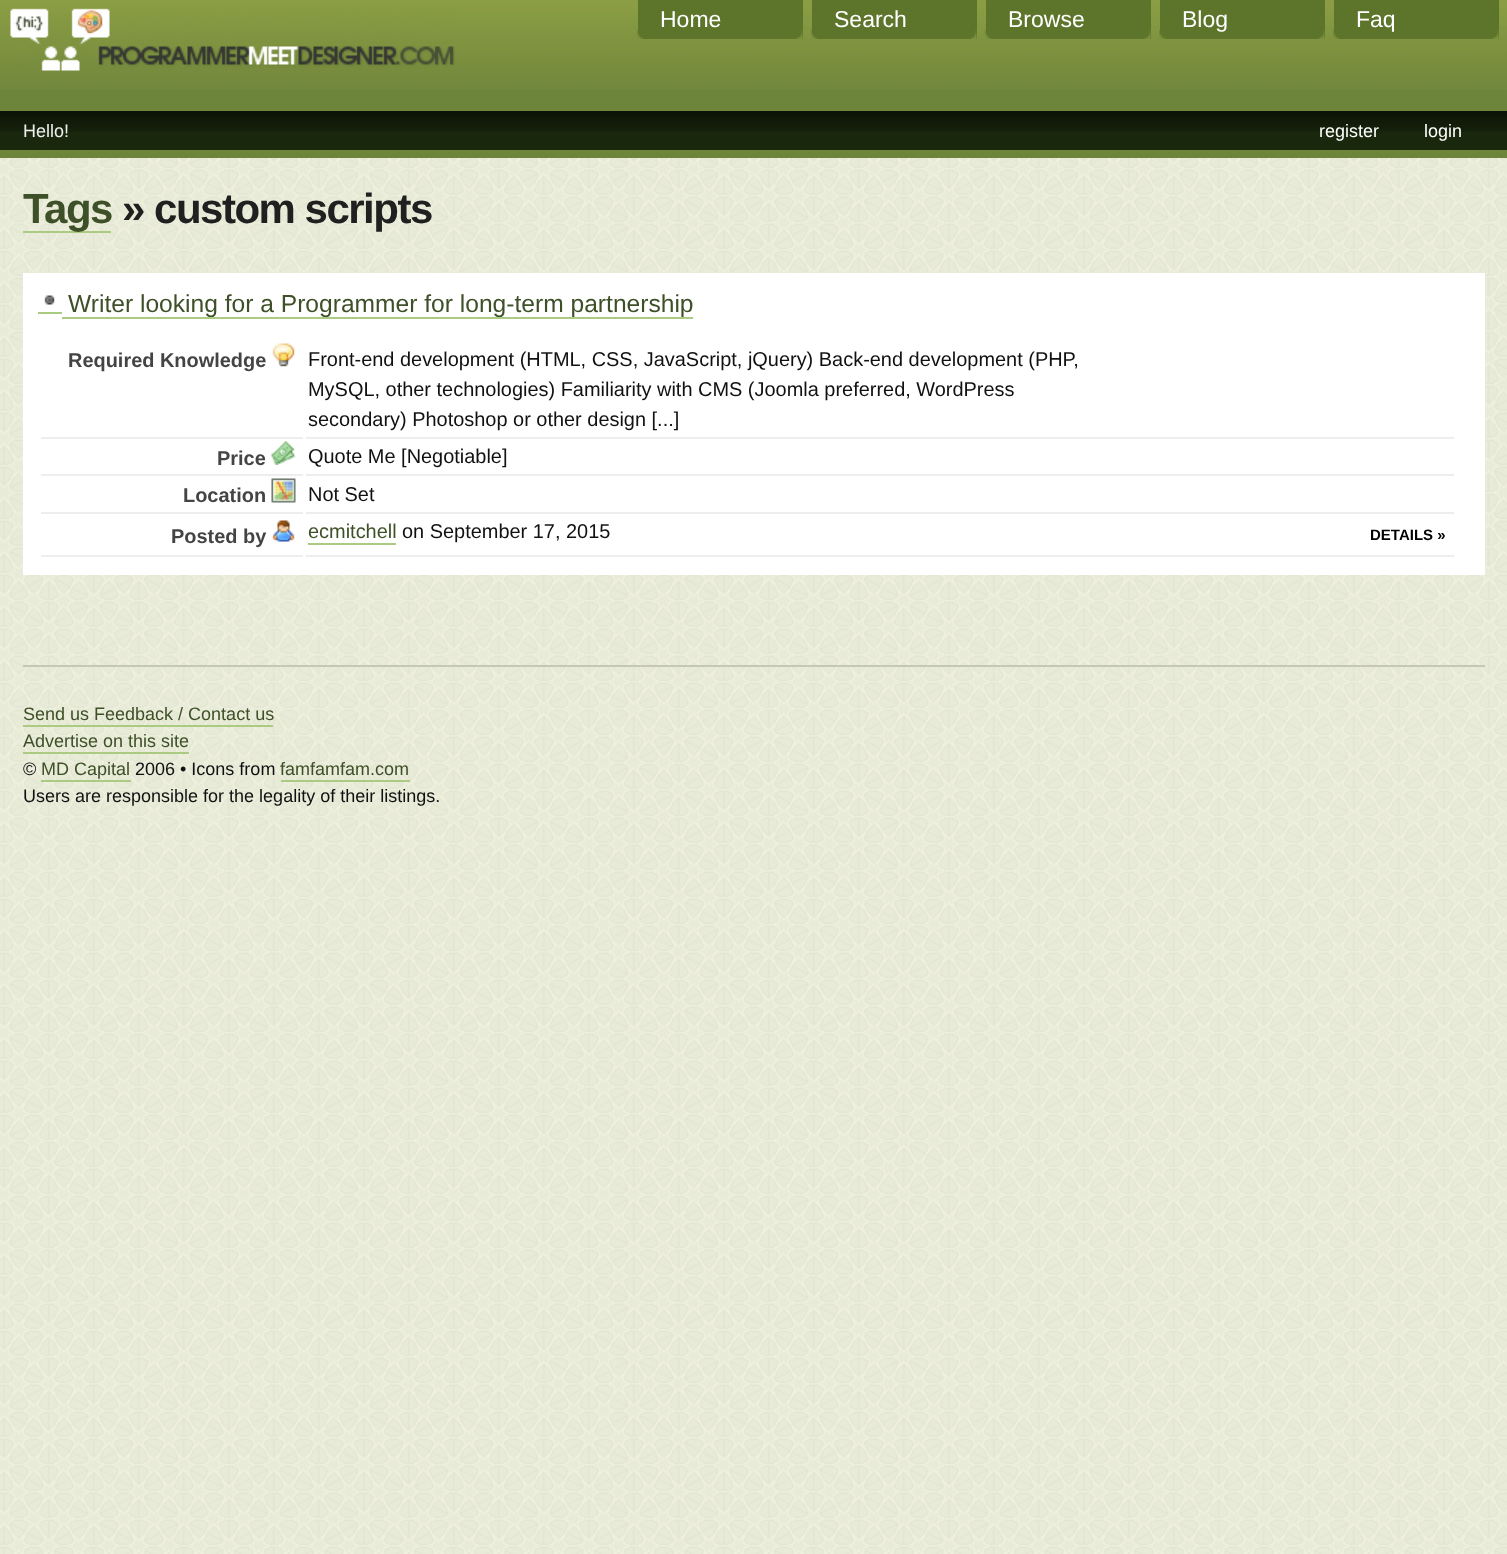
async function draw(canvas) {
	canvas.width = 1507;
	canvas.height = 1554;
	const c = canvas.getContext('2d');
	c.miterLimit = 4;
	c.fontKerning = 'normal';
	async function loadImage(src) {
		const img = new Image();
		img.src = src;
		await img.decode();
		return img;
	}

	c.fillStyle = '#fff';
	c.fillRect(0, 0, 1507, 1554);
	c.drawImage(await loadImage('img1.png'), 0, 158, 1507, 1396);
	c.fillStyle = '#6d853b';
	c.fillRect(0, 90, 1507, 68);
	c.drawImage(await loadImage('img2.png'), 0, 0, 1507, 90);
	c.drawImage(await loadImage('img3.png'), 10, 8, 445, 63);
	c.fillStyle = '#5d752b';
	c.fillRect(638, 0, 165, 39);
	c.drawImage(await loadImage('img4.png'), 637, 30, 166, 9);
	c.font = '23px Liberation Sans';
	c.fillStyle = '#fff';
	c.fillText('Home', 660, 27);
	c.fillStyle = '#5d752b';
	c.fillRect(812, 0, 165, 39);
	c.drawImage(await loadImage('img5.png'), 811, 30, 166, 9);
	c.fillStyle = '#fff';
	c.fillText('Search', 834, 27);
	c.fillStyle = '#5d752b';
	c.fillRect(986, 0, 165, 39);
	c.drawImage(await loadImage('img6.png'), 985, 30, 166, 9);
	c.fillStyle = '#fff';
	c.fillText('Browse', 1008, 27);
	c.fillStyle = '#5d752b';
	c.fillRect(1160, 0, 165, 39);
	c.drawImage(await loadImage('img7.png'), 1159, 30, 166, 9);
	c.fillStyle = '#fff';
	c.fillText('Blog', 1182, 27);
	c.fillStyle = '#5d752b';
	c.fillRect(1334, 0, 165, 39);
	c.drawImage(await loadImage('img8.png'), 1333, 30, 166, 9);
	c.fillStyle = '#fff';
	c.fillText('Faq', 1356, 27);
	c.fillStyle = '#19270d';
	c.fillRect(0, 132, 1507, 18);
	c.drawImage(await loadImage('img9.png'), 0, 111, 1507, 21);
	c.font = '18px Liberation Sans';
	c.fillStyle = '#eee';
	c.fillText('Hello!', 23, 137);
	c.fillStyle = '#fff';
	c.fillText('register', 1319, 137);
	c.fillText('login', 1424, 137);
	c.fillStyle = '#abcb83';
	c.fillRect(23, 231, 88, 2);
	c.letterSpacing = '-1.5px';
	c.font = 'bold 42px Liberation Sans';
	c.fillStyle = '#3e5027';
	c.fillText('Tags', 23, 223);
	c.fillStyle = '#202020';
	c.fillText('» custom scripts', 122, 223);
	c.fillStyle = '#fff';
	c.fillRect(23, 273, 1462, 302);
	c.drawImage(await loadImage('img10.png'), 44, 295, 11, 10);
	c.fillStyle = '#abcb83';
	c.fillRect(62, 317, 631, 2);
	c.letterSpacing = '0px';
	c.font = '24.6px Liberation Sans';
	c.fillStyle = '#3e5027';
	c.fillText('Writer looking for a Programmer for long-term partnership', 68, 312);
	c.fillStyle = '#abcb83';
	c.fillRect(38, 312, 24, 2);
	c.fillStyle = '#eee';
	c.fillRect(41, 437, 262, 2);
	c.font = 'bold 19.95px Liberation Sans';
	c.fillStyle = '#444';
	c.fillText('Required Knowledge', 68, 367);
	c.drawImage(await loadImage('img11.png'), 272, 343, 23, 24);
	c.fillStyle = '#eee';
	c.fillRect(306, 437, 1148, 2);
	c.font = '19.95px Liberation Sans';
	c.fillStyle = '#111';
	for (const [text, x, y] of [
		['Front-end development (HTML, CSS, JavaScript, jQuery) Back-end development (PHP,', 308, 366],
		['MySQL, other technologies) Familiarity with CMS (Joomla preferred, WordPress', 308, 396],
		['secondary) Photoshop or other design [...]', 308, 426],
	]) {
		c.fillText(text, x, y);
	}
	c.fillStyle = '#eee';
	c.fillRect(41, 474, 262, 2);
	c.font = 'bold 19.95px Liberation Sans';
	c.fillStyle = '#444';
	c.fillText('Price', 217, 465);
	c.drawImage(await loadImage('img12.png'), 271, 441, 25, 24);
	c.fillStyle = '#eee';
	c.fillRect(306, 474, 1148, 2);
	c.font = '19.95px Liberation Sans';
	c.fillStyle = '#111';
	c.fillText('Quote Me [Negotiable]', 308, 463);
	c.fillStyle = '#eee';
	c.fillRect(41, 512, 262, 2);
	c.font = 'bold 19.95px Liberation Sans';
	c.fillStyle = '#444';
	c.fillText('Location', 183, 502);
	c.drawImage(await loadImage('img13.png'), 271, 478, 25, 25);
	c.fillStyle = '#eee';
	c.fillRect(306, 512, 1148, 2);
	c.font = '19.95px Liberation Sans';
	c.fillStyle = '#111';
	c.fillText('Not Set', 308, 501);
	c.fillStyle = '#eee';
	c.fillRect(41, 555, 262, 2);
	c.font = 'bold 19.95px Liberation Sans';
	c.fillStyle = '#444';
	c.fillText('Posted by', 171, 543);
	c.drawImage(await loadImage('img14.png'), 272, 520, 23, 22);
	c.fillStyle = '#eee';
	c.fillRect(306, 555, 1148, 2);
	c.font = '19.95px Liberation Sans';
	c.fillStyle = '#3e5027';
	c.fillText('ecmitchell', 308, 538);
	c.fillStyle = '#abcb83';
	c.fillRect(308, 543, 88, 2);
	c.fillStyle = '#111';
	c.fillText('on September 17, 2015', 402, 538);
	c.font = 'bold 15px Liberation Sans';
	c.fillStyle = '#000';
	c.fillText('DETAILS »', 1370, 540);
	c.fillStyle = '#c6c8b5';
	c.fillRect(23, 665, 1462, 2);
	c.font = '18px Liberation Sans';
	c.fillStyle = '#3e5027';
	c.fillText('Send us Feedback / Contact us', 23, 720);
	c.fillStyle = '#abcb83';
	c.fillRect(23, 725, 250, 2);
	c.fillStyle = '#3e5027';
	c.fillText('Advertise on this site', 23, 747);
	c.fillStyle = '#abcb83';
	c.fillRect(23, 752, 166, 2);
	c.fillStyle = '#111';
	c.fillText('©', 23, 775);
	c.fillStyle = '#3e5027';
	c.fillText('MD Capital', 41, 775);
	c.fillStyle = '#abcb83';
	c.fillRect(41, 780, 90, 2);
	c.fillStyle = '#111';
	c.fillText('2006 • Icons from', 135, 775);
	c.fillStyle = '#3e5027';
	c.fillText('famfamfam.com', 280, 775);
	c.fillStyle = '#abcb83';
	c.fillRect(281, 780, 129, 2);
	c.fillStyle = '#111';
	c.fillText('Users are responsible for the legality of their listings.', 23, 802);
}

draw(document.querySelector('canvas'));
